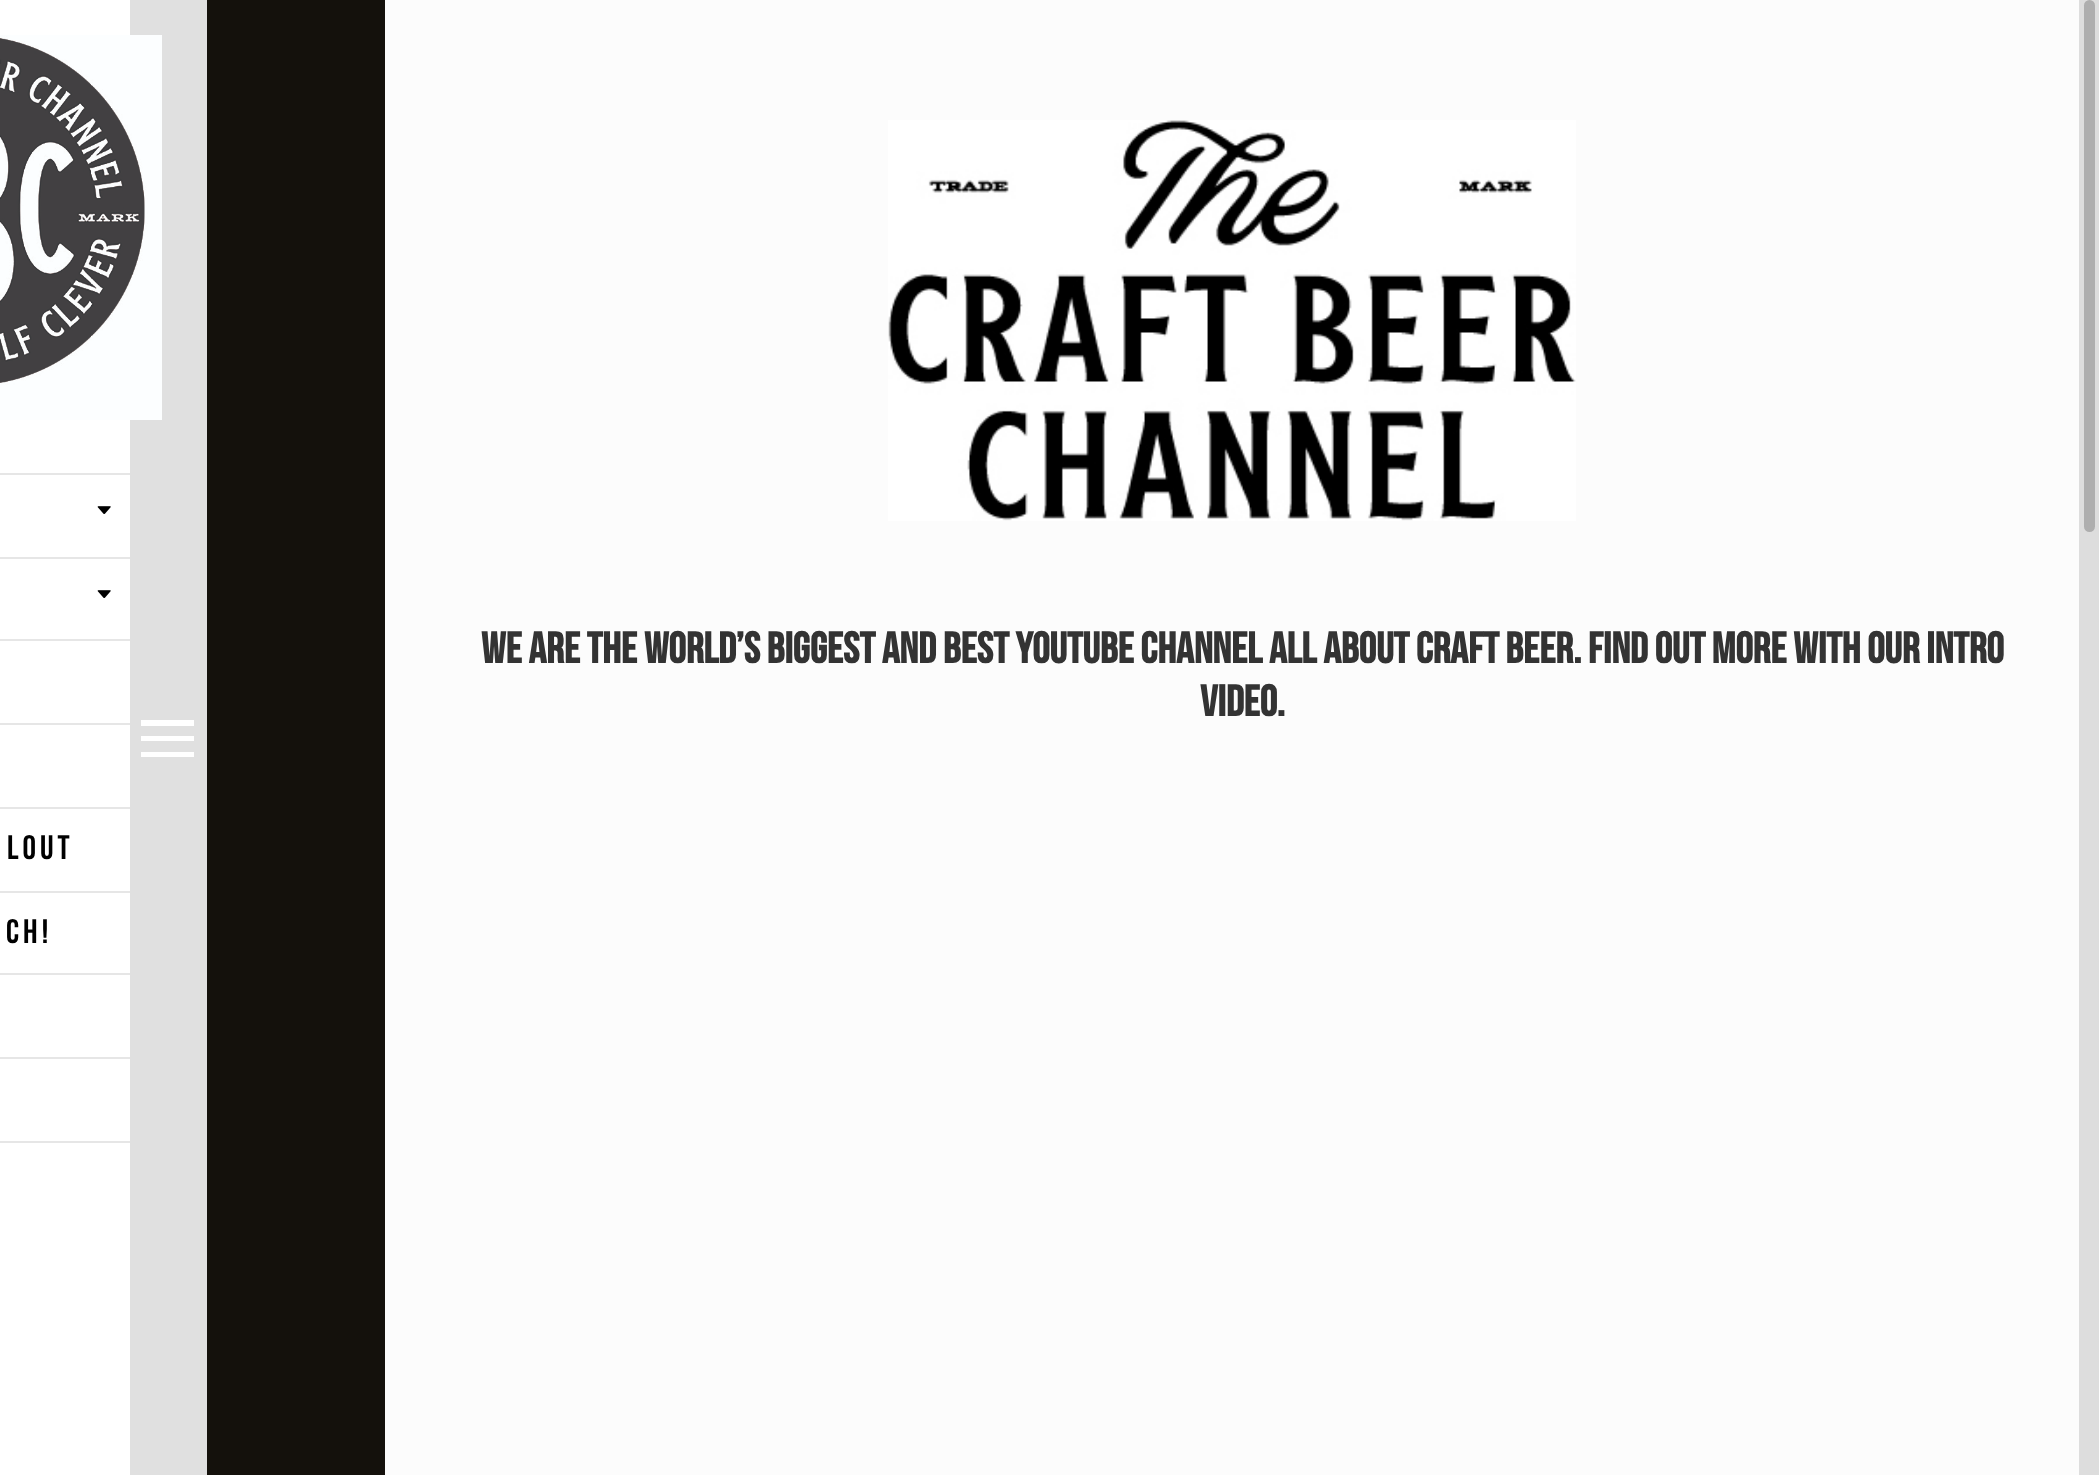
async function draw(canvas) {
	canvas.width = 2099;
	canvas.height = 1475;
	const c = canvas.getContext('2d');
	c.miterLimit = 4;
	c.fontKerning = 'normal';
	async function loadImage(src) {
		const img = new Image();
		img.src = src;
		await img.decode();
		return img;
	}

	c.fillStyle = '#14110c';
	c.fillRect(0, 0, 2099, 1475);
	c.fillStyle = '#fcfcfc';
	c.fillRect(385, 0, 1694, 1475);
	c.drawImage(await loadImage('img1.png'), 888, 120, 688, 401);
	c.font = 'bold 43.75px Bebas Neue';
	c.fillStyle = '#333';
	c.fillText('We are the world’s biggest and best Youtube channel all about craft beer. Find out more with our intro', 481, 663);
	c.fillText('video.', 1200, 716);
	c.fillStyle = '#ddd';
	c.fillRect(2079, 0, 20, 1475);
	c.fillStyle = '#aeaeae';
	c.beginPath();
	c.roundRect(2084, 0, 11, 532, 5.5);
	c.fill();
	c.fillStyle = '#fff';
	c.fillRect(0, 0, 130, 1475);
	c.fillStyle = '#e0e0e0';
	c.fillRect(130, 0, 77, 1475);
	c.drawImage(await loadImage('img2.png'), 0, 35, 162, 385);
	c.fillStyle = '#e6e6e6';
	c.fillRect(0, 473, 130, 2);
	c.fillRect(0, 557, 130, 2);
	c.drawImage(await loadImage('img3.png'), 97, 506, 14, 8);
	c.fillRect(0, 639, 130, 2);
	c.drawImage(await loadImage('img3.png'), 97, 590, 14, 8);
	for (const [x, y, w, h, color] of [
		[0, 723, 130, 2, '#e6e6e6'],
		[0, 807, 130, 2, '#e6e6e6'],
		[0, 891, 130, 2, '#e6e6e6'],
	]) {
		c.fillStyle = color;
		c.fillRect(x, y, w, h);
	}
	c.letterSpacing = '4px';
	c.font = '34px Bebas Neue';
	c.fillStyle = '#000';
	c.fillText('LOUT', 7, 859);
	c.fillStyle = '#e6e6e6';
	c.fillRect(0, 973, 130, 2);
	c.fillStyle = '#000';
	c.fillText('CH!', 6, 943);
	c.fillStyle = '#e6e6e6';
	c.fillRect(0, 1057, 130, 2);
	c.fillRect(0, 1141, 130, 2);
	c.fillStyle = '#fff';
	c.beginPath();
	c.moveTo(141, 741);
	c.lineTo(141, 736);
	c.lineTo(194, 736);
	c.lineTo(194, 741);
	c.closePath();
	c.moveTo(141, 726);
	c.lineTo(141, 720);
	c.lineTo(194, 720);
	c.lineTo(194, 726);
	c.closePath();
	c.moveTo(141, 757);
	c.lineTo(141, 752);
	c.lineTo(194, 752);
	c.lineTo(194, 757);
	c.closePath();
	c.fill();
}

draw(document.querySelector('canvas'));
